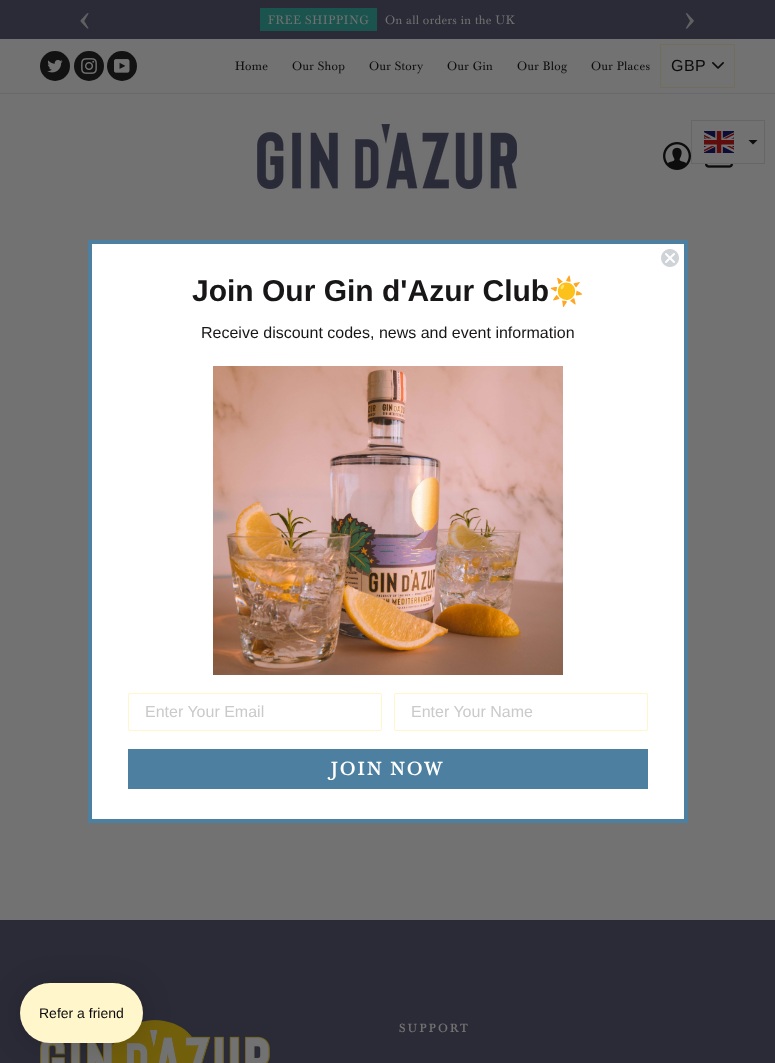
async function draw(canvas) {
	canvas.width = 775;
	canvas.height = 1063;
	const c = canvas.getContext('2d');
	c.miterLimit = 4;
	c.fontKerning = 'normal';
	async function loadImage(src) {
		const img = new Image();
		img.src = src;
		await img.decode();
		return img;
	}

	c.fillStyle = '#727272';
	c.fillRect(0, 0, 775, 1063);
	c.fillStyle = '#2a2b37';
	c.fillRect(0, 0, 775, 39);
	c.font = '40px Liberation Serif';
	c.fillStyle = '#606063';
	c.fillText('‹', 78, 30);
	c.fillStyle = '#1b544e';
	c.fillRect(260, 8, 117, 23);
	c.letterSpacing = '0.35px';
	c.font = '11.9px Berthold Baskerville';
	c.fillStyle = '#727272';
	c.fillText('FREE SHIPPING', 268, 24);
	c.fillText('On all orders in the UK', 385, 24);
	c.letterSpacing = '0px';
	c.font = '40px Liberation Serif';
	c.fillStyle = '#606063';
	c.fillText('›', 683, 30);
	c.fillStyle = '#121212';
	c.beginPath();
	c.arc(55, 66, 15, 0, 2 * Math.PI);
	c.fill();
	c.drawImage(await loadImage('img1.png'), 47, 59, 16, 14);
	c.beginPath();
	c.arc(89, 66, 15, 0, 2 * Math.PI);
	c.fill();
	c.drawImage(await loadImage('img2.png'), 81, 58, 16, 16);
	c.beginPath();
	c.arc(122, 66, 15, 0, 2 * Math.PI);
	c.fill();
	c.drawImage(await loadImage('img3.png'), 114, 59, 16, 14);
	c.letterSpacing = '0.35px';
	c.font = '11.9px Berthold Baskerville';
	c.fillStyle = '#0c0c0c';
	for (const [text, x, y] of [
		['Home', 235, 70],
		['Our Shop', 292, 70],
		['Our Story', 369, 70],
		['Our Gin', 447, 70],
		['Our Blog', 517, 70],
		['Our Places', 591, 70],
	]) {
		c.fillText(text, x, y);
	}
	c.drawImage(await loadImage('img4.png'), 712, 62, 12, 7);
	c.strokeStyle = '#726e5e';
	c.strokeRect(660.5, 44.5, 74, 43);
	c.letterSpacing = '0.5px';
	c.font = '16px Liberation Sans';
	c.fillText('GBP', 671, 71);
	c.fillStyle = '#686868';
	c.fillRect(0, 93, 775, 1);
	c.drawImage(await loadImage('img5.png'), 257, 124, 260, 65);
	c.drawImage(await loadImage('img6.png'), 663, 142, 28, 28);
	c.drawImage(await loadImage('img7.png'), 705, 164, 28, 4);
	c.fillStyle = '#2a2b37';
	c.fillRect(0, 920, 775, 143);
	c.drawImage(await loadImage('img8.png'), 40, 1020, 230, 43);
	c.letterSpacing = '2.25px';
	c.font = 'bold 11.25px Berthold Baskerville';
	c.fillStyle = '#727272';
	c.fillText('SUPPORT', 399, 1032);
	c.strokeStyle = '#666';
	c.strokeRect(691.5, 120.5, 73, 43);
	c.drawImage(await loadImage('img9.png'), 704, 131, 30, 22);
	c.save();
	c.beginPath();
	c.rect(748, 140, 10, 5);
	c.clip();
	c.fillStyle = '#0c0c0c';
	c.beginPath();
	c.moveTo(758, 139.5);
	c.lineTo(753, 144.5);
	c.lineTo(748, 139.5);
	c.closePath();
	c.fill('evenodd');
	c.restore();
	c.fillStyle = '#fff';
	c.beginPath();
	c.rect(90, 242, 596, 579);
	c.fill();
	c.strokeStyle = '#4d7fa1';
	c.lineWidth = 4;
	c.stroke();
	c.drawImage(await loadImage('img10.png'), 661, 249, 18, 18);
	c.letterSpacing = '0px';
	c.font = 'bold 30px Liberation Sans';
	c.fillStyle = '#181616';
	c.fillText('Join Our Gin d\'Azur Club', 192, 301);
	c.font = '28px Noto Color Emoji';
	c.fillText('☀️', 549, 301);
	c.font = '16px Liberation Sans';
	c.fillText('Receive discount codes, news and event information', 201, 338);
	c.drawImage(await loadImage('img11.png'), 213, 366, 350, 309);
	c.beginPath();
	c.roundRect(128.5, 693.5, 253, 37, 1.5);
	c.strokeStyle = '#fff6cc';
	c.lineWidth = 1;
	c.stroke();
	c.fillStyle = '#cacacb';
	c.fillText('Enter Your Email', 145, 717);
	c.beginPath();
	c.roundRect(394.5, 693.5, 253, 37, 1.5);
	c.stroke();
	c.fillText('Enter Your Name', 411, 717);
	c.fillStyle = '#4d7fa1';
	c.fillRect(128, 749, 520, 40);
	c.letterSpacing = '2px';
	c.font = 'bold 18px Berthold Baskerville';
	c.fillStyle = '#fff';
	c.fillText('JOIN NOW', 331, 775);
	c.fillStyle = '#00000026';
	c.filter = 'blur(15px)';
	c.beginPath();
	c.roundRect(20, 985, 123, 60, 30);
	c.fill();
	c.filter = 'none';
	c.fillStyle = '#fff6cc';
	c.beginPath();
	c.roundRect(20, 983, 123, 60, 30);
	c.fill();
	c.letterSpacing = '0px';
	c.font = '14px Liberation Sans';
	c.fillStyle = '#0c0c0c';
	c.fillText('Refer a friend', 39, 1018);
}

draw(document.querySelector('canvas'));
